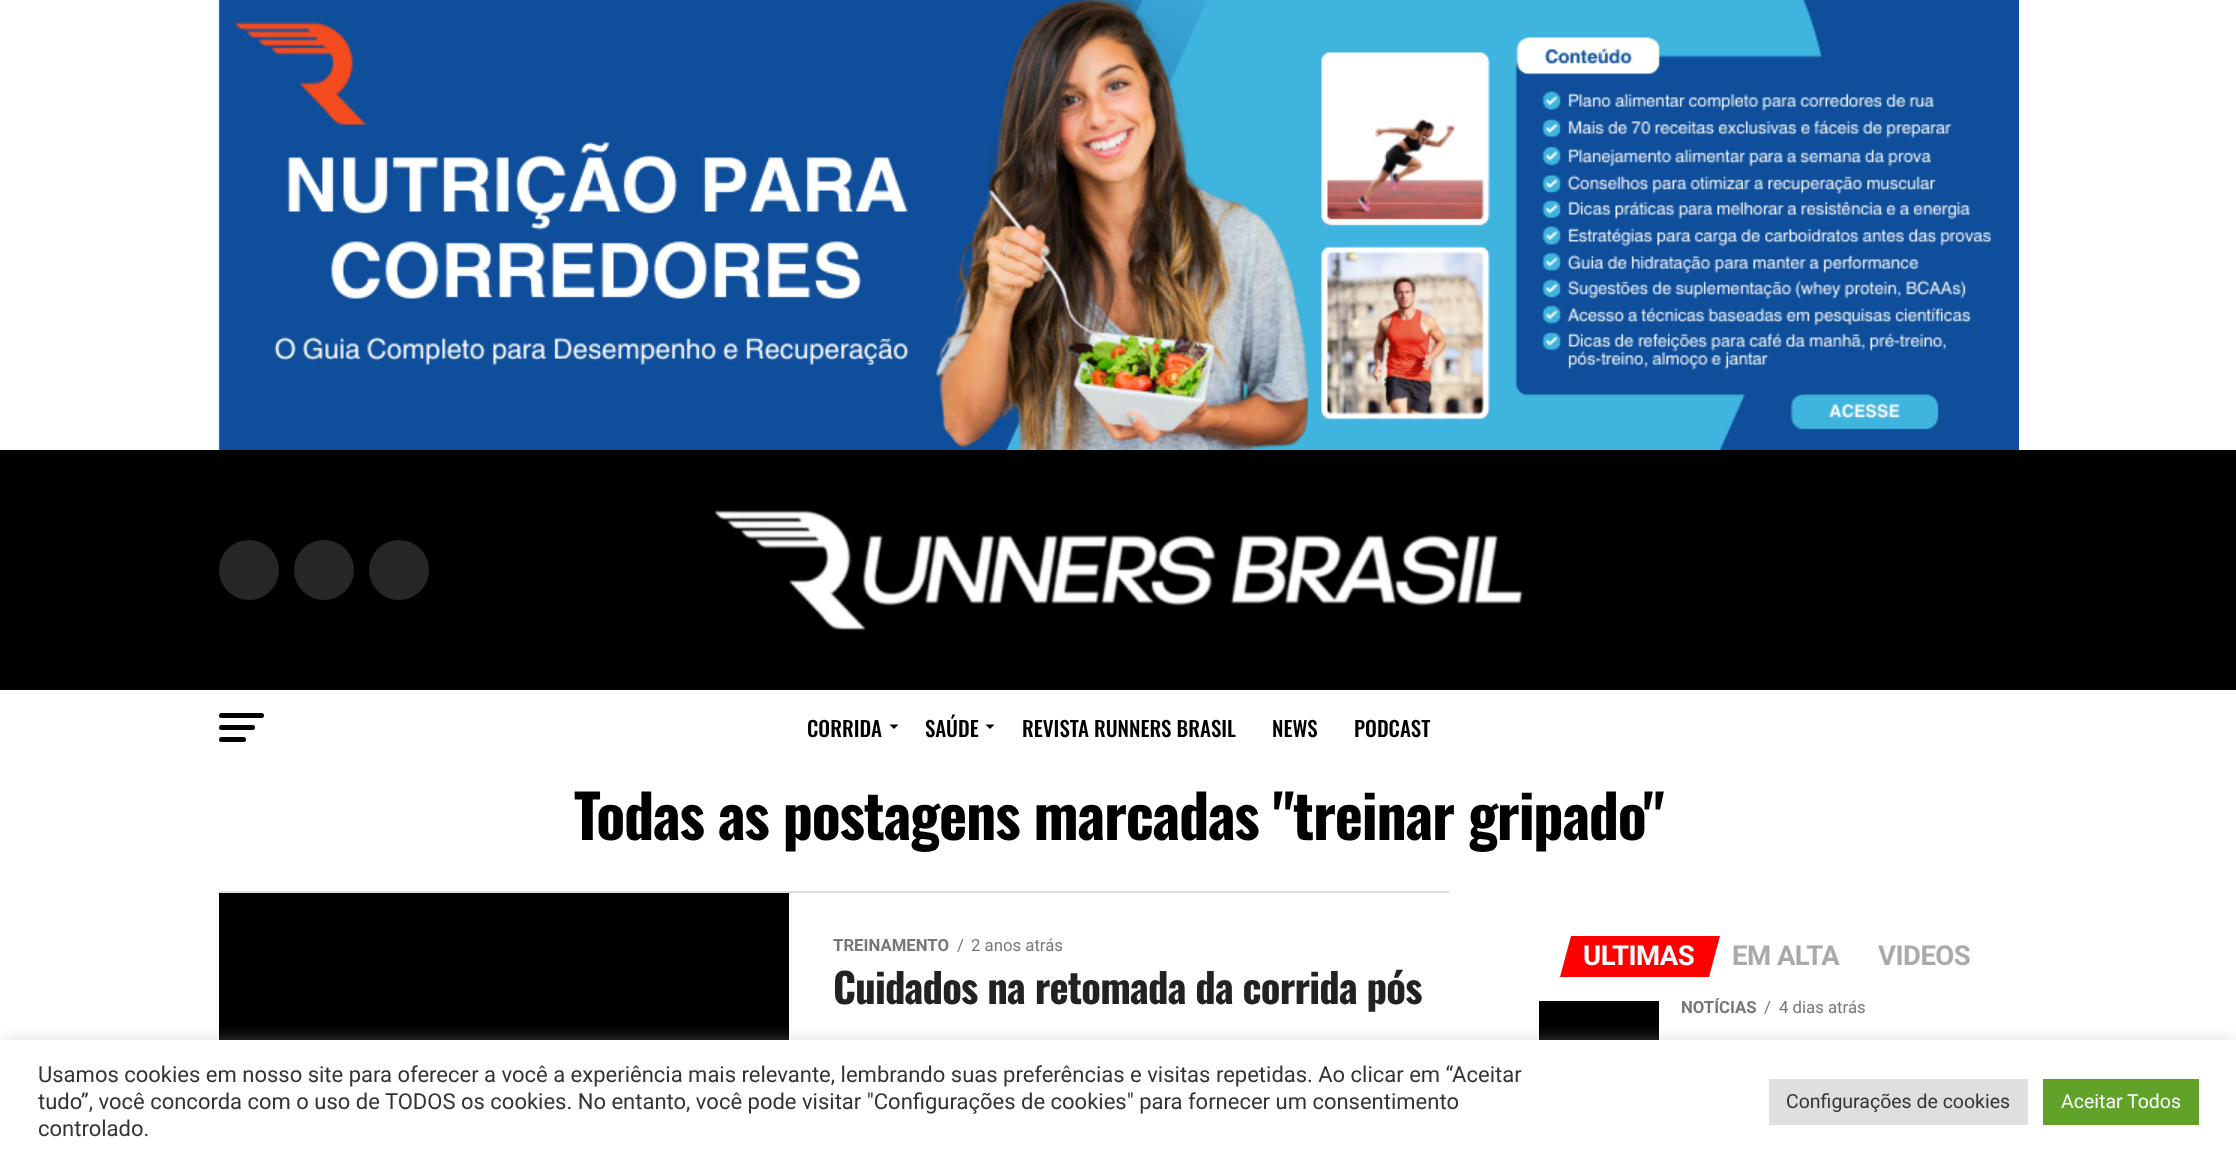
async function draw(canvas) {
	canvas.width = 2236;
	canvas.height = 1162;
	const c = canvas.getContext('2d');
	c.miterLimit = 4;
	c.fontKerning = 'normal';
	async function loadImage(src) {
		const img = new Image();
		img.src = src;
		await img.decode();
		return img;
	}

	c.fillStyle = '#fff';
	c.fillRect(0, 0, 2236, 1162);
	c.drawImage(await loadImage('img1.png'), 218, 0, 1801, 450);
	c.fillStyle = '#000';
	c.fillRect(0, 450, 2236, 240);
	c.fillStyle = '#262626';
	c.beginPath();
	c.arc(249, 570, 30, 0, 2 * Math.PI);
	c.fill();
	c.beginPath();
	c.arc(324, 570, 30, 0, 2 * Math.PI);
	c.fill();
	c.beginPath();
	c.arc(399, 570, 30, 0, 2 * Math.PI);
	c.fill();
	c.drawImage(await loadImage('img2.png'), 714, 510, 809, 121);
	c.fillStyle = '#000';
	c.beginPath();
	c.roundRect(219, 713, 45, 5, 2.5);
	c.fill();
	c.beginPath();
	c.roundRect(219, 725, 36, 5, 2.5);
	c.fill();
	c.beginPath();
	c.roundRect(219, 737, 27, 5, 2.5);
	c.fill();
	c.font = '500 21px Oswald';
	c.fillText('CORRIDA', 807, 737);
	c.beginPath();
	c.moveTo(889.5, 724.5);
	c.lineTo(898.5, 724.5);
	c.lineTo(894, 729);
	c.closePath();
	c.fill();
	c.fillText('SAÚDE', 925, 737);
	c.beginPath();
	c.moveTo(985.5, 724.5);
	c.lineTo(994.5, 724.5);
	c.lineTo(990, 729);
	c.closePath();
	c.fill();
	for (const [text, x, y] of [
		['REVISTA RUNNERS BRASIL', 1022, 737],
		['NEWS', 1272, 737],
		['PODCAST', 1354, 737],
	]) {
		c.fillText(text, x, y);
	}
	c.letterSpacing = '-1.2px';
	c.font = 'bold 60px Oswald';
	c.fillText('Todas as postagens marcadas "treinar gripado"', 574, 840);
	c.fillStyle = '#ddd';
	c.fillRect(219, 891, 1230, 2);
	c.fillStyle = '#000';
	c.fillRect(219, 893, 570, 147);
	c.letterSpacing = '0px';
	c.font = 'bold 16.75px Roboto';
	c.fillStyle = '#777';
	c.fillText('TREINAMENTO', 833, 951);
	c.font = '16.75px Roboto';
	c.fillText('/', 957, 951);
	c.fillText('2 anos atrás', 971, 951);
	c.letterSpacing = '-0.8px';
	c.font = 'bold 40.75px Oswald';
	c.fillStyle = '#222';
	c.fillText('Cuidados na retomada da corrida pós', 833, 1004);
	c.fillStyle = '#f00';
	c.beginPath();
	c.moveTo(1571, 936);
	c.lineTo(1720, 936);
	c.lineTo(1709, 977);
	c.lineTo(1560, 977);
	c.closePath();
	c.fill();
	c.letterSpacing = '-0.5px';
	c.font = 'bold 27.5px Roboto';
	c.fillStyle = '#fff';
	c.fillText('ULTIMAS', 1583, 965);
	c.fillStyle = '#aaa';
	c.fillText('EM ALTA', 1732, 965);
	c.fillText('VIDEOS', 1878, 965);
	c.fillStyle = '#000';
	c.fillRect(1539, 1001, 120, 39);
	c.letterSpacing = '0px';
	c.font = 'bold 16.75px Roboto';
	c.fillStyle = '#777';
	c.fillText('NOTÍCIAS', 1681, 1013);
	c.font = '16.75px Roboto';
	c.fillText('/', 1764, 1013);
	c.fillText('4 dias atrás', 1779, 1013);
	c.fillStyle = '#acabab4d';
	c.filter = 'blur(7.5px)';
	c.beginPath();
	c.rect(0, 1038, 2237, 123);
	c.fill();
	c.filter = 'none';
	c.fillStyle = '#fff';
	c.fillRect(0, 1040, 2236, 122);
	c.font = '22px Roboto';
	c.fillStyle = '#333';
	for (const [text, x, y] of [
		['Usamos cookies em nosso site para oferecer a você a experiência mais relevante, lembrando suas preferências e visitas repetidas. Ao clicar em “Aceitar', 38, 1082],
		['tudo”, você concorda com o uso de TODOS os cookies. No entanto, você pode visitar "Configurações de cookies" para fornecer um consentimento', 38, 1109],
		['controlado.', 38, 1136],
	]) {
		c.fillText(text, x, y);
	}
	c.fillStyle = '#dedfe0';
	c.fillRect(1769, 1079, 259, 46);
	c.font = '19.5px Roboto';
	c.fillStyle = '#333';
	c.fillText('Configurações de cookies', 1786, 1108);
	c.fillStyle = '#61a229';
	c.fillRect(2043, 1079, 156, 46);
	c.fillStyle = '#fff';
	c.fillText('Aceitar Todos', 2061, 1108);
}

draw(document.querySelector('canvas'));
